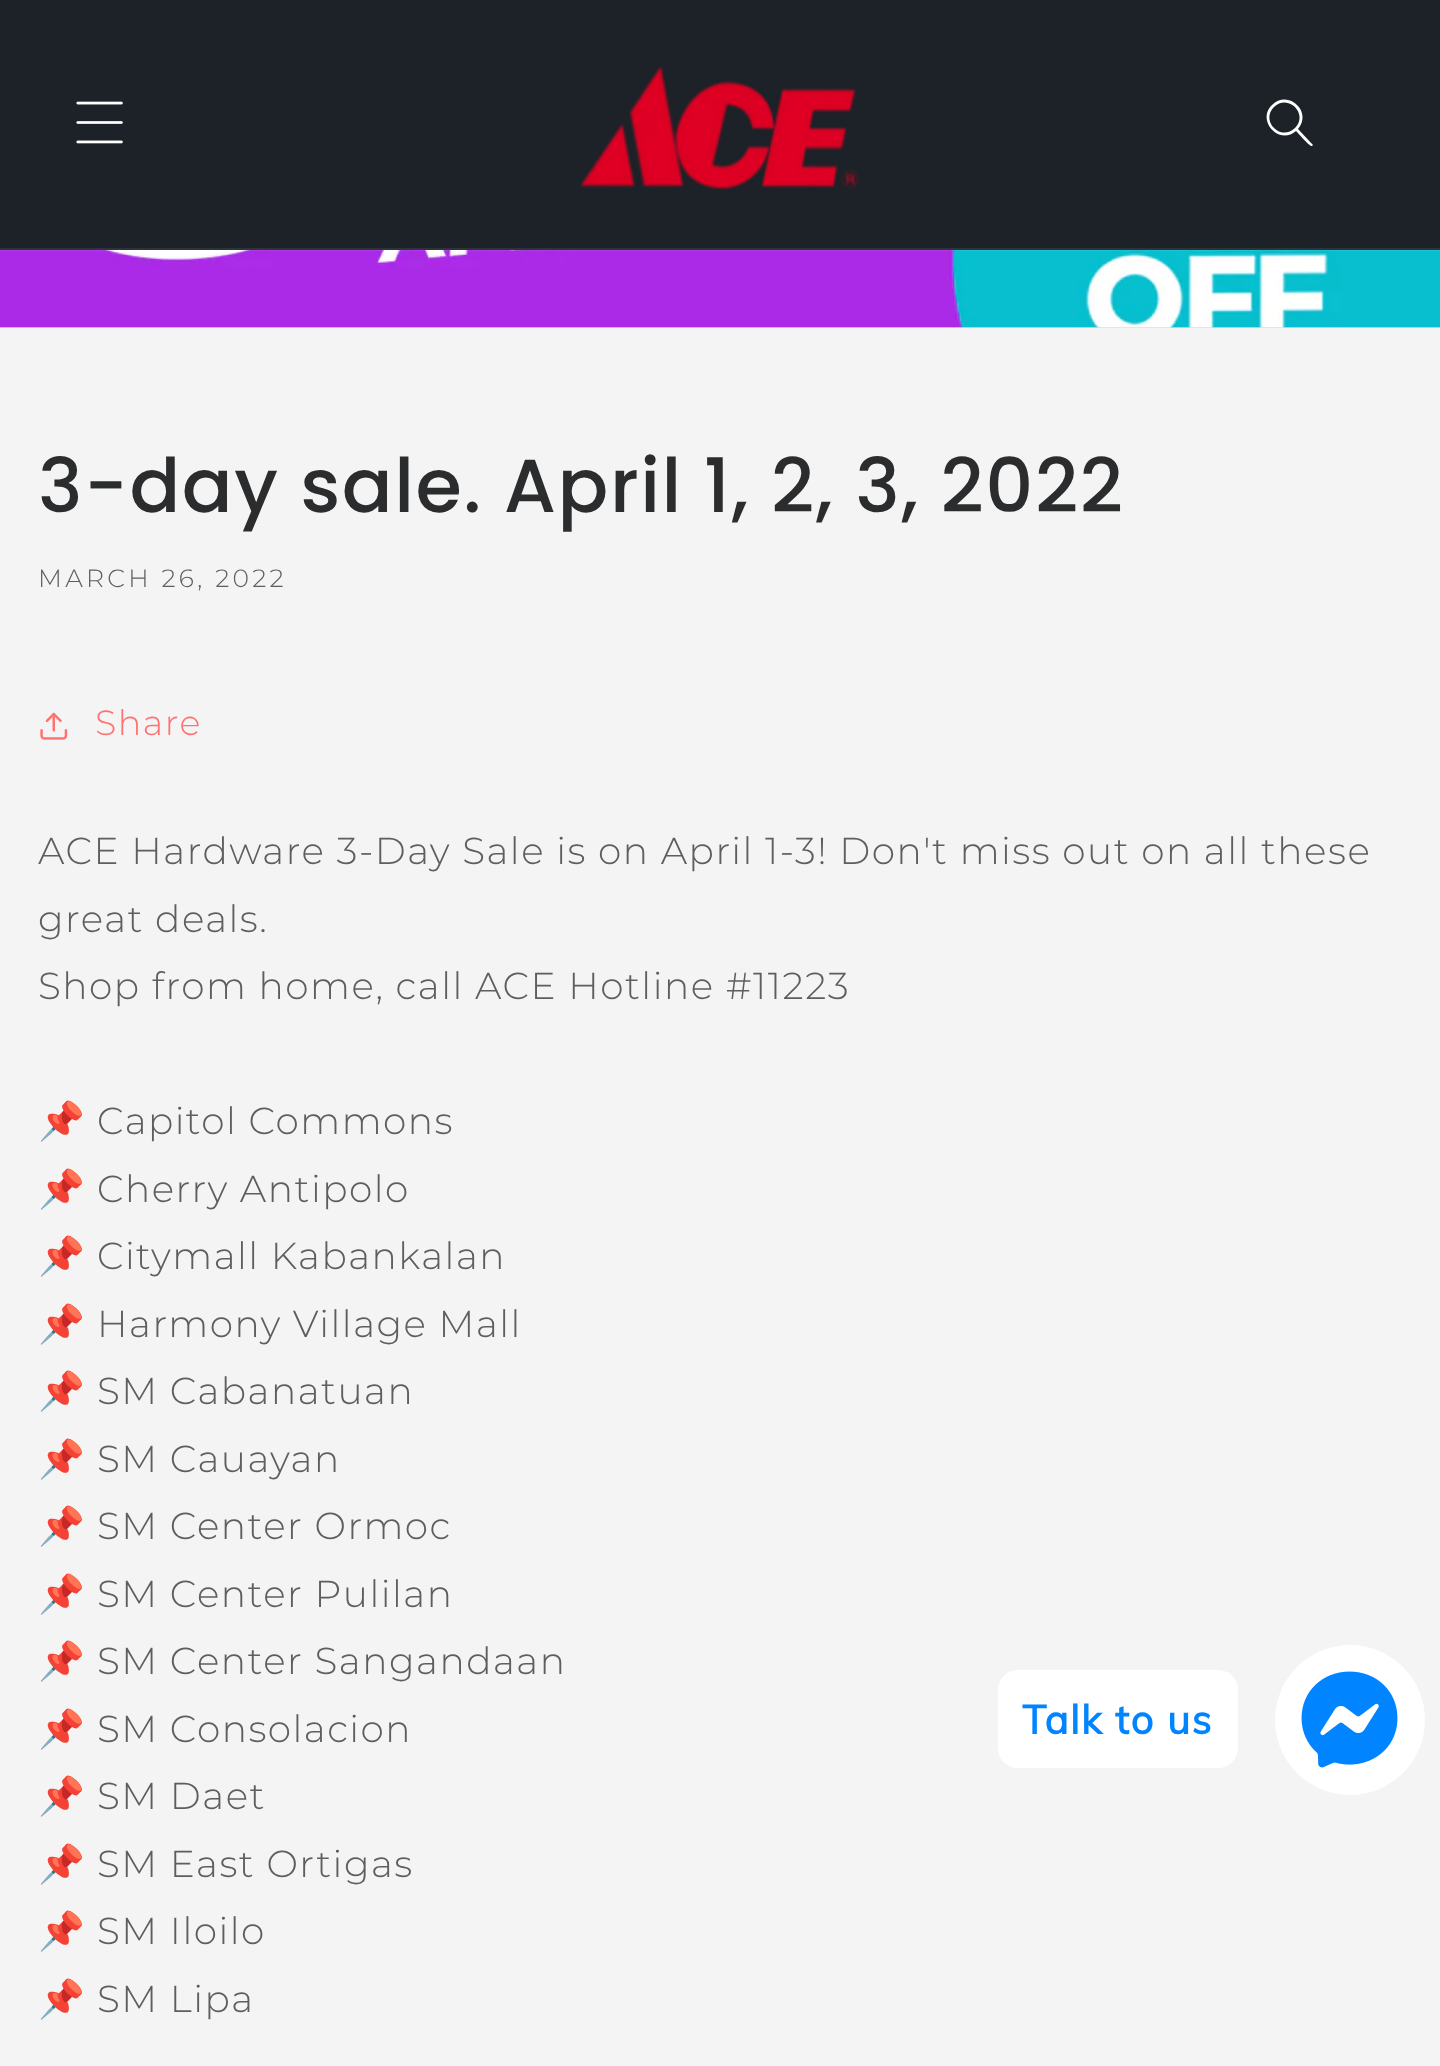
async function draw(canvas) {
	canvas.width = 1440;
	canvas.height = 2066;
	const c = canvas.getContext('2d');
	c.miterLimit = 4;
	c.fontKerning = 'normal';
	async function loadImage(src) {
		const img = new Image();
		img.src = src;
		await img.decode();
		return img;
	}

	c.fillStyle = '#f4f4f4';
	c.fillRect(0, 0, 1440, 2066);
	c.fillStyle = '#1c2228';
	c.fillRect(0, 0, 1440, 250);
	c.fillStyle = '#dededf';
	c.fillRect(0, 327, 1440, 1);
	c.drawImage(await loadImage('img3.png'), 0, 250, 1440, 78);
	c.fillStyle = '#ffffff14';
	c.fillRect(0, 248, 1440, 3);
	c.drawImage(await loadImage('img1.png'), 76, 101, 47, 43);
	c.drawImage(await loadImage('img2.png'), 579, 66, 281, 125);
	c.fillStyle = '#fff';
	c.beginPath();
	c.moveTo(1295, 128);
	c.bezierCurveTo(1281, 142, 1260, 121, 1274, 107);
	c.bezierCurveTo(1288, 93, 1309, 114, 1295, 128);
	c.closePath();
	c.moveTo(1296, 131);
	c.bezierCurveTo(1279, 146, 1256, 120, 1272, 105);
	c.bezierCurveTo(1288, 89, 1313, 112, 1298, 129);
	c.lineTo(1313, 145);
	c.lineTo(1312, 146);
	c.bezierCurveTo(1310, 147, 1298, 133, 1296, 131);
	c.closePath();
	c.fill('evenodd');
	c.letterSpacing = '1.5px';
	c.font = '500 75px Poppins';
	c.fillStyle = '#2b2c2d';
	c.fillText('3-day sale. April 1, 2, 3, 2022', 38, 512);
	c.letterSpacing = '3.25px';
	c.font = '300 25px Montserrat';
	c.fillStyle = '#5d5e5f';
	c.fillText('MARCH 26, 2022', 38, 587);
	c.drawImage(await loadImage('img4.png'), 40, 712, 28, 28);
	c.letterSpacing = '1.5px';
	c.font = '300 35px Montserrat';
	c.fillStyle = '#ff7272';
	c.fillText('Share', 95, 735);
	c.font = '300 37.5px Montserrat';
	c.fillStyle = '#5d5e5f';
	for (const [text, x, y] of [
		['ACE Hardware 3-Day Sale is on April 1-3! Don\'t miss out on all these', 38, 864],
		['great deals.', 38, 932],
		['Shop from home, call ACE Hotline #11223', 38, 999],
	]) {
		c.fillText(text, x, y);
	}
	c.font = '37.5px Noto Color Emoji';
	c.fillText('📌', 38, 1134);
	c.font = '300 37.5px Montserrat';
	c.fillText('Capitol Commons', 97, 1134);
	c.font = '37.5px Noto Color Emoji';
	c.fillText('📌', 38, 1202);
	c.font = '300 37.5px Montserrat';
	c.fillText('Cherry Antipolo', 97, 1202);
	c.font = '37.5px Noto Color Emoji';
	c.fillText('📌', 38, 1269);
	c.font = '300 37.5px Montserrat';
	c.fillText('Citymall Kabankalan', 97, 1269);
	c.font = '37.5px Noto Color Emoji';
	c.fillText('📌', 38, 1337);
	c.font = '300 37.5px Montserrat';
	c.fillText('Harmony Village Mall', 97, 1337);
	c.font = '37.5px Noto Color Emoji';
	c.fillText('📌', 38, 1404);
	c.font = '300 37.5px Montserrat';
	c.fillText('SM Cabanatuan', 97, 1404);
	c.font = '37.5px Noto Color Emoji';
	c.fillText('📌', 38, 1472);
	c.font = '300 37.5px Montserrat';
	c.fillText('SM Cauayan', 97, 1472);
	c.font = '37.5px Noto Color Emoji';
	c.fillText('📌', 38, 1539);
	c.font = '300 37.5px Montserrat';
	c.fillText('SM Center Ormoc', 97, 1539);
	c.font = '37.5px Noto Color Emoji';
	c.fillText('📌', 38, 1607);
	c.font = '300 37.5px Montserrat';
	c.fillText('SM Center Pulilan', 97, 1607);
	c.font = '37.5px Noto Color Emoji';
	c.fillText('📌', 38, 1674);
	c.font = '300 37.5px Montserrat';
	c.fillText('SM Center Sangandaan', 97, 1674);
	c.font = '37.5px Noto Color Emoji';
	c.fillText('📌', 38, 1742);
	c.font = '300 37.5px Montserrat';
	c.fillText('SM Consolacion', 97, 1742);
	c.font = '37.5px Noto Color Emoji';
	c.fillText('📌', 38, 1809);
	c.font = '300 37.5px Montserrat';
	c.fillText('SM Daet', 97, 1809);
	c.font = '37.5px Noto Color Emoji';
	c.fillText('📌', 38, 1877);
	c.font = '300 37.5px Montserrat';
	c.fillText('SM East Ortigas', 97, 1877);
	c.font = '37.5px Noto Color Emoji';
	c.fillText('📌', 38, 1944);
	c.font = '300 37.5px Montserrat';
	c.fillText('SM Iloilo', 97, 1944);
	c.font = '37.5px Noto Color Emoji';
	c.fillText('📌', 38, 2012);
	c.font = '300 37.5px Montserrat';
	c.fillText('SM Lipa', 97, 2012);
	c.fillStyle = '#fff';
	c.beginPath();
	c.arc(1350, 1720, 75, 0, 2 * Math.PI);
	c.fill();
	c.beginPath();
	c.roundRect(998, 1670, 240, 98, 20);
	c.fill();
	c.font = 'bold 40px Muli';
	c.fillStyle = '#0084ff';
	c.fillText('Talk to us', 1022, 1734);
	c.drawImage(await loadImage('img5.png'), 1301, 1671, 97, 97);
}

draw(document.querySelector('canvas'));
